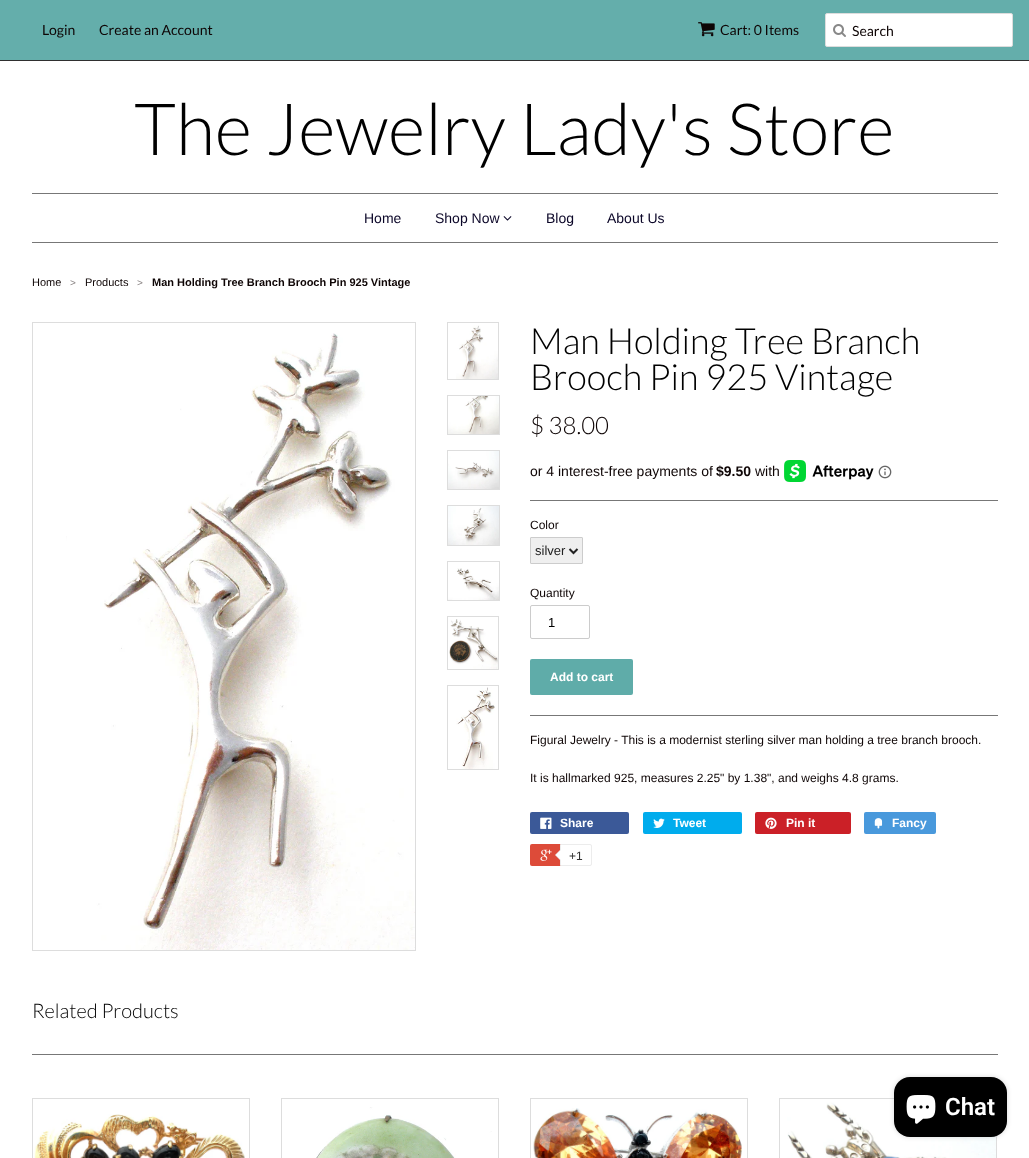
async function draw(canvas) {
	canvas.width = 1029;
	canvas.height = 1158;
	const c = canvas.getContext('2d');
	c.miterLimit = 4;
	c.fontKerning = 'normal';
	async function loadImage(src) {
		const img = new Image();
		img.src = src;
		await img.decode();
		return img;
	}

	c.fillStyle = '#fff';
	c.fillRect(0, 0, 1029, 1158);
	c.fillStyle = '#64aeab';
	c.fillRect(0, 0, 1029, 60);
	c.fillStyle = '#2f2f2f';
	c.fillRect(0, 60, 1029, 1);
	c.font = '14px Lato';
	c.fillStyle = '#0e0505';
	c.fillText('Login', 42, 35);
	c.fillText('Create an Account', 99, 35);
	c.drawImage(await loadImage('img1.png'), 698, 22, 17, 15);
	c.fillText('Cart: 0 Items', 720, 35);
	c.fillStyle = '#fff';
	c.beginPath();
	c.roundRect(825.5, 13.5, 187, 33, 1.5);
	c.fill();
	c.strokeStyle = '#ddd';
	c.stroke();
	c.drawImage(await loadImage('img2.png'), 833, 24, 13, 13);
	c.fillStyle = '#0e0505';
	c.fillText('Search', 852, 36);
	c.font = '300 72px Lato';
	c.fillStyle = '#000';
	c.fillText('The Jewelry Lady\'s Store', 134, 155);
	c.fillStyle = '#777';
	c.fillRect(32, 193, 966, 1);
	c.fillRect(32, 242, 966, 1);
	c.font = '14px Liberation Sans';
	c.fillStyle = '#0a0527';
	c.fillText('Home', 364, 223);
	c.fillText('Shop Now', 435, 223);
	c.drawImage(await loadImage('img3.png'), 503, 216, 9, 5);
	c.fillText('Blog', 546, 223);
	c.fillText('About Us', 607, 223);
	c.font = '11px Liberation Sans';
	c.fillStyle = '#0e0505';
	c.fillText('Home', 32, 286);
	c.font = '10px Liberation Sans';
	c.fillStyle = '#878181';
	c.fillText('>', 70, 286);
	c.font = '11px Liberation Sans';
	c.fillStyle = '#0e0505';
	c.fillText('Products', 85, 286);
	c.font = '10px Liberation Sans';
	c.fillStyle = '#878181';
	c.fillText('>', 137, 286);
	c.font = 'bold 11px Liberation Sans';
	c.fillStyle = '#0e0505';
	c.fillText('Man Holding Tree Branch Brooch Pin 925 Vintage', 152, 286);
	c.strokeRect(32.5, 322.5, 383, 628);
	c.drawImage(await loadImage('img4.png'), 66, 333, 349, 617);
	c.strokeRect(447.5, 322.5, 51, 57);
	c.drawImage(await loadImage('img5.png'), 456, 325, 42, 54);
	c.strokeRect(447.5, 395.5, 52, 39);
	c.drawImage(await loadImage('img6.png'), 448, 396, 51, 38);
	c.strokeRect(447.5, 450.5, 52, 39);
	c.drawImage(await loadImage('img7.png'), 448, 451, 51, 38);
	c.strokeRect(447.5, 505.5, 52, 40);
	c.drawImage(await loadImage('img8.png'), 448, 506, 51, 39);
	c.strokeRect(447.5, 561.5, 52, 39);
	c.drawImage(await loadImage('img9.png'), 448, 568, 51, 32);
	c.strokeRect(447.5, 616.5, 51, 53);
	c.drawImage(await loadImage('img10.png'), 449, 619, 49, 50);
	c.strokeRect(447.5, 685.5, 51, 84);
	c.drawImage(await loadImage('img11.png'), 456, 687, 39, 82);
	c.font = '300 36px Lato';
	c.fillStyle = '#000';
	c.fillText('Man Holding Tree Branch', 530, 354);
	c.fillText('Brooch Pin 925 Vintage', 530, 390);
	c.font = '300 24px Lato';
	c.fillStyle = '#0e0505';
	c.fillText('$ 38.00', 530, 434);
	c.font = '14px Liberation Sans';
	c.fillText('or 4 interest-free payments of', 530, 476);
	c.font = 'bold 14px Liberation Sans';
	c.fillText('$9.50', 716, 476);
	c.font = '14px Liberation Sans';
	c.fillText('with', 755, 476);
	c.drawImage(await loadImage('img12.png'), 784, 460, 90, 22);
	c.drawImage(await loadImage('img13.png'), 878, 465, 14, 14);
	c.fillStyle = '#777';
	c.fillRect(530, 500, 468, 1);
	c.fillRect(530, 715, 468, 1);
	c.font = '12px Liberation Sans';
	c.fillStyle = '#0e0505';
	c.fillText('Color', 530, 529);
	c.fillStyle = '#efefef';
	c.beginPath();
	c.roundRect(530.5, 537.5, 52, 26, 0.5);
	c.fill();
	c.strokeStyle = '#ccc';
	c.stroke();
	c.beginPath();
	c.moveTo(569.5, 549);
	c.lineTo(573.5, 553);
	c.lineTo(577.5, 549);
	c.strokeStyle = '#222';
	c.lineWidth = 2;
	c.stroke();
	c.font = '13px Liberation Sans';
	c.fillStyle = '#222';
	c.fillText('silver', 535, 555);
	c.font = '12px Liberation Sans';
	c.fillStyle = '#0e0505';
	c.fillText('Quantity', 530, 597);
	c.beginPath();
	c.roundRect(530.5, 605.5, 59, 33, 1.5);
	c.strokeStyle = '#ccc';
	c.lineWidth = 1;
	c.stroke();
	c.font = '13px Liberation Sans';
	c.fillStyle = '#000';
	c.fillText('1', 548, 627);
	c.fillStyle = '#5faca9';
	c.beginPath();
	c.roundRect(530, 659, 103, 36, 2);
	c.fill();
	c.font = 'bold 12px Liberation Sans';
	c.fillStyle = '#fff';
	c.fillText('Add to cart', 550, 681);
	c.font = '12px Liberation Sans';
	c.fillStyle = '#0e0505';
	c.fillText('Figural Jewelry - This is a modernist sterling silver man holding a tree branch brooch.', 530, 744);
	c.fillText('It is hallmarked 925, measures 2.25" by 1.38", and weighs 4.8 grams.', 530, 782);
	c.fillStyle = '#3b5998';
	c.beginPath();
	c.roundRect(530, 812, 99, 22, 2);
	c.fill();
	c.drawImage(await loadImage('img14.png'), 540, 817, 12, 12);
	c.font = 'bold 12px Liberation Sans';
	c.fillStyle = '#fff';
	c.fillText('Share', 560, 827);
	c.fillStyle = '#00aced';
	c.beginPath();
	c.roundRect(643, 812, 99, 22, 2);
	c.fill();
	c.drawImage(await loadImage('img15.png'), 653, 818, 12, 10);
	c.fillStyle = '#fff';
	c.fillText('Tweet', 673, 827);
	c.fillStyle = '#cb2027';
	c.beginPath();
	c.roundRect(755, 812, 96, 22, 2);
	c.fill();
	c.drawImage(await loadImage('img16.png'), 765, 817, 12, 12);
	c.fillStyle = '#fff';
	c.fillText('Pin it', 786, 827);
	c.fillStyle = '#4999dc';
	c.beginPath();
	c.roundRect(864, 812, 72, 22, 2);
	c.fill();
	c.drawImage(await loadImage('img17.png'), 874, 818, 9, 11);
	c.fillStyle = '#fff';
	c.fillText('Fancy', 892, 827);
	c.fillStyle = '#dd4b39';
	c.beginPath();
	c.roundRect(530, 844, 60, 22, 2);
	c.fill();
	c.drawImage(await loadImage('img18.png'), 540, 849, 12, 12);
	c.fillStyle = '#fff';
	c.beginPath();
	c.roundRect(560.5, 844.5, 31, 21, [0, 1.5, 1.5, 0]);
	c.fill();
	c.strokeStyle = '#ececec';
	c.stroke();
	c.fillStyle = '#ececec';
	c.beginPath();
	c.moveTo(561, 849);
	c.lineTo(561, 861);
	c.lineTo(555, 855);
	c.closePath();
	c.fill();
	c.fillStyle = '#fff';
	c.beginPath();
	c.moveTo(562, 849);
	c.lineTo(562, 861);
	c.lineTo(556, 855);
	c.closePath();
	c.fill();
	c.font = '12px Liberation Sans';
	c.fillStyle = '#333';
	c.fillText('+1', 569, 860);
	c.fillStyle = '#777';
	c.fillRect(32, 1054, 966, 1);
	c.font = '300 20px Lato';
	c.fillStyle = '#000';
	c.fillText('Related Products', 32, 1018);
	c.strokeStyle = '#ddd';
	c.strokeRect(32.5, 1098.5, 217, 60);
	c.drawImage(await loadImage('img19.png'), 33, 1114, 212, 44);
	c.strokeRect(281.5, 1098.5, 217, 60);
	c.drawImage(await loadImage('img20.png'), 316, 1107, 176, 51);
	c.strokeRect(530.5, 1098.5, 217, 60);
	c.drawImage(await loadImage('img21.png'), 533, 1108, 209, 50);
	c.strokeRect(779.5, 1098.5, 217, 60);
	c.drawImage(await loadImage('img22.png'), 787, 1099, 209, 59);
	c.fillStyle = '#00000026';
	c.filter = 'blur(2.5px)';
	c.beginPath();
	c.roundRect(894, 1077, 113, 60, 16);
	c.fill();
	c.filter = 'none';
	c.fillStyle = '#000';
	c.beginPath();
	c.roundRect(894, 1077, 113, 60, 16);
	c.fill();
	c.drawImage(await loadImage('img23.png'), 906, 1095, 30, 29);
	c.font = '600 24px Roboto';
	c.fillStyle = '#fff';
	c.fillText('Chat', 945, 1115);
}

draw(document.querySelector('canvas'));
